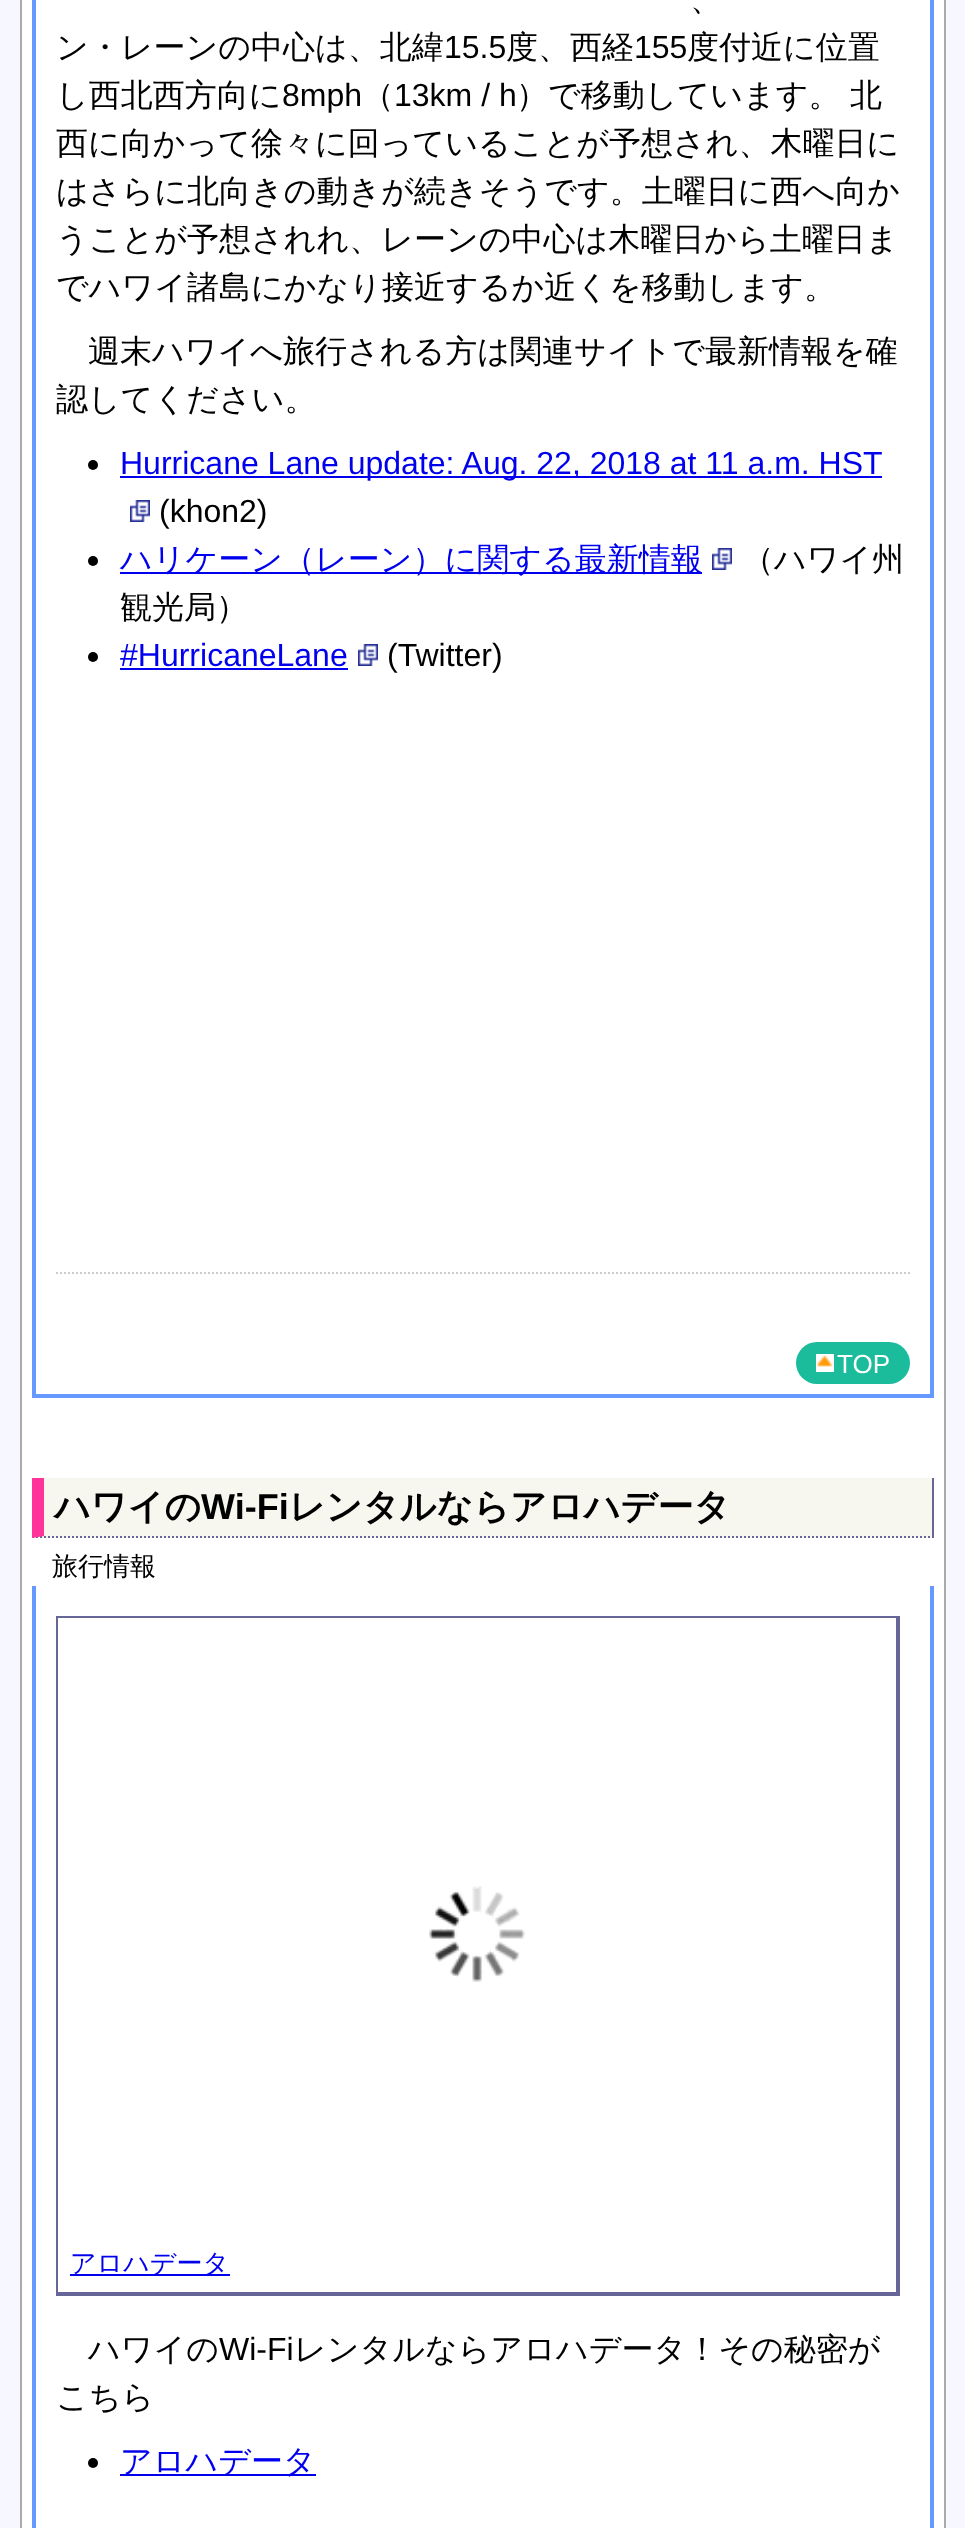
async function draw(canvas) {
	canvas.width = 965;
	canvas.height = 2528;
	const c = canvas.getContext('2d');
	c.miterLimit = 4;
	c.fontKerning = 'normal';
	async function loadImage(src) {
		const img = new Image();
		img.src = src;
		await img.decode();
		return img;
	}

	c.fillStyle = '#f7f7ff';
	c.fillRect(0, 0, 965, 2528);
	c.fillStyle = '#fff';
	c.beginPath();
	c.rect(21, -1, 924, 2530);
	c.fill();
	c.strokeStyle = '#aaa';
	c.lineWidth = 2;
	c.stroke();
	for (const [x, y, w, h, color] of [
		[930, 0, 4, 1398, '#69f'],
		[32, 1394, 902, 4, '#69f'],
		[32, 0, 4, 1398, '#69f'],
	]) {
		c.fillStyle = color;
		c.fillRect(x, y, w, h);
	}
	c.font = '500 32px WenQuanYi Zen Hei';
	c.fillStyle = '#000';
	c.fillText('、', 690, 10);
	c.fillText('ン・レーンの中心は、北緯', 56, 58);
	c.font = '32px Liberation Sans';
	c.fillText('15.5', 444, 58);
	c.font = '500 32px WenQuanYi Zen Hei';
	c.fillText('度、西経', 506, 58);
	c.font = '32px Liberation Sans';
	c.fillText('155', 634, 58);
	c.font = '500 32px WenQuanYi Zen Hei';
	c.fillText('度付近に位置', 687, 58);
	c.fillText('し西北西方向に', 56, 106);
	c.font = '32px Liberation Sans';
	c.fillText('8mph', 282, 106);
	c.font = '500 32px WenQuanYi Zen Hei';
	c.fillText('（', 362, 106);
	c.font = '32px Liberation Sans';
	c.fillText('13km / h', 394, 106);
	c.font = '500 32px WenQuanYi Zen Hei';
	for (const [text, x, y] of [
		['）で移動しています。', 516, 106],
		['北', 850, 106],
		['西に向かって徐々に回っていることが予想され、木曜日に', 56, 154],
		['はさらに北向きの動きが続きそうです。土曜日に西へ向か', 56, 202],
		['うことが予想されれ、レーンの中心は木曜日から土曜日ま', 56, 250],
		['でハワイ諸島にかなり接近するか近くを移動します。', 56, 298],
		['週末ハワイへ旅行される方は関連サイトで最新情報を確', 88, 362],
		['認してください。', 56, 410],
	]) {
		c.fillText(text, x, y);
	}
	c.beginPath();
	c.arc(93, 465, 5, 0, 2 * Math.PI);
	c.fill();
	c.fillStyle = '#00e';
	c.fillRect(120, 476, 762, 2);
	c.font = '32px Liberation Sans';
	c.fillText('Hurricane Lane update: Aug. 22, 2018 at 11 a.m. HST', 120, 474);
	c.drawImage(await loadImage('img1.png'), 130, 500, 20, 22);
	c.fillStyle = '#000';
	c.fillText('(khon2)', 159, 522);
	c.beginPath();
	c.arc(93, 561, 5, 0, 2 * Math.PI);
	c.fill();
	c.fillStyle = '#00e';
	c.fillRect(120, 572, 582, 2);
	c.font = '500 32px WenQuanYi Zen Hei';
	c.fillText('ハリケーン（レーン）に関する最新情報', 120, 570);
	c.drawImage(await loadImage('img1.png'), 712, 548, 20, 22);
	c.fillStyle = '#000';
	c.fillText('（ハワイ州', 742, 570);
	c.fillText('観光局）', 120, 618);
	c.beginPath();
	c.arc(93, 657, 5, 0, 2 * Math.PI);
	c.fill();
	c.font = '32px Liberation Sans';
	c.fillStyle = '#00e';
	c.fillText('#HurricaneLane', 120, 666);
	c.fillRect(120, 668, 228, 2);
	c.drawImage(await loadImage('img1.png'), 358, 644, 20, 22);
	c.fillStyle = '#000';
	c.fillText('(Twitter)', 387, 666);
	c.beginPath();
	c.moveTo(56, 1273);
	c.lineTo(910, 1273);
	c.strokeStyle = '#ccc';
	c.setLineDash([2, 2]);
	c.stroke();
	c.fillStyle = '#1abc9c';
	c.beginPath();
	c.roundRect(796, 1342, 114, 42, 21);
	c.fill();
	c.drawImage(await loadImage('img2.png'), 816, 1354, 18, 18);
	c.font = '26px Liberation Sans';
	c.fillStyle = '#fff';
	c.fillText('TOP', 837, 1373);
	c.fillStyle = '#f7f7ef';
	c.fillRect(34, 1478, 898, 60);
	c.fillStyle = '#669';
	c.fillRect(932, 1478, 2, 60);
	c.beginPath();
	c.moveTo(32, 1537);
	c.lineTo(934, 1537);
	c.strokeStyle = '#669';
	c.stroke();
	c.fillStyle = '#f39';
	c.beginPath();
	c.moveTo(32, 1538);
	c.lineTo(32, 1478);
	c.lineTo(44, 1478);
	c.lineTo(44, 1536);
	c.closePath();
	c.fill();
	c.font = 'bold 36px WenQuanYi Zen Hei';
	c.fillStyle = '#000';
	c.fillText('ハワイの', 54, 1519);
	c.font = 'bold 36px Liberation Sans';
	c.fillText('Wi-Fi', 201, 1519);
	c.font = 'bold 36px WenQuanYi Zen Hei';
	c.fillText('レンタルならアロハデータ', 289, 1519);
	c.font = '500 26px WenQuanYi Zen Hei';
	c.fillText('旅行情報', 52, 1575);
	for (const [x, y, w, h, color] of [
		[930, 1586, 4, 942, '#69f'],
		[32, 1586, 4, 942, '#69f'],
		[56, 1616, 844, 2, '#669'],
		[896, 1616, 4, 680, '#669'],
		[56, 2292, 844, 4, '#669'],
		[56, 1616, 2, 680, '#669'],
	]) {
		c.fillStyle = color;
		c.fillRect(x, y, w, h);
	}
	c.drawImage(await loadImage('img3.png'), 429, 1886, 96, 96);
	c.fillStyle = '#00e';
	c.fillRect(70, 2274, 160, 2);
	c.fillText('アロハデータ', 70, 2272);
	c.font = '500 32px WenQuanYi Zen Hei';
	c.fillStyle = '#000';
	c.fillText('ハワイの', 88, 2360);
	c.font = '32px Liberation Sans';
	c.fillText('Wi-Fi', 219, 2360);
	c.font = '500 32px WenQuanYi Zen Hei';
	c.fillText('レンタルならアロハデータ！その秘密が', 294, 2360);
	c.fillText('こちら', 56, 2408);
	c.beginPath();
	c.arc(93, 2463, 5, 0, 2 * Math.PI);
	c.fill();
	c.fillStyle = '#00e';
	c.fillRect(120, 2474, 196, 2);
	c.fillText('アロハデータ', 120, 2472);
}

draw(document.querySelector('canvas'));
